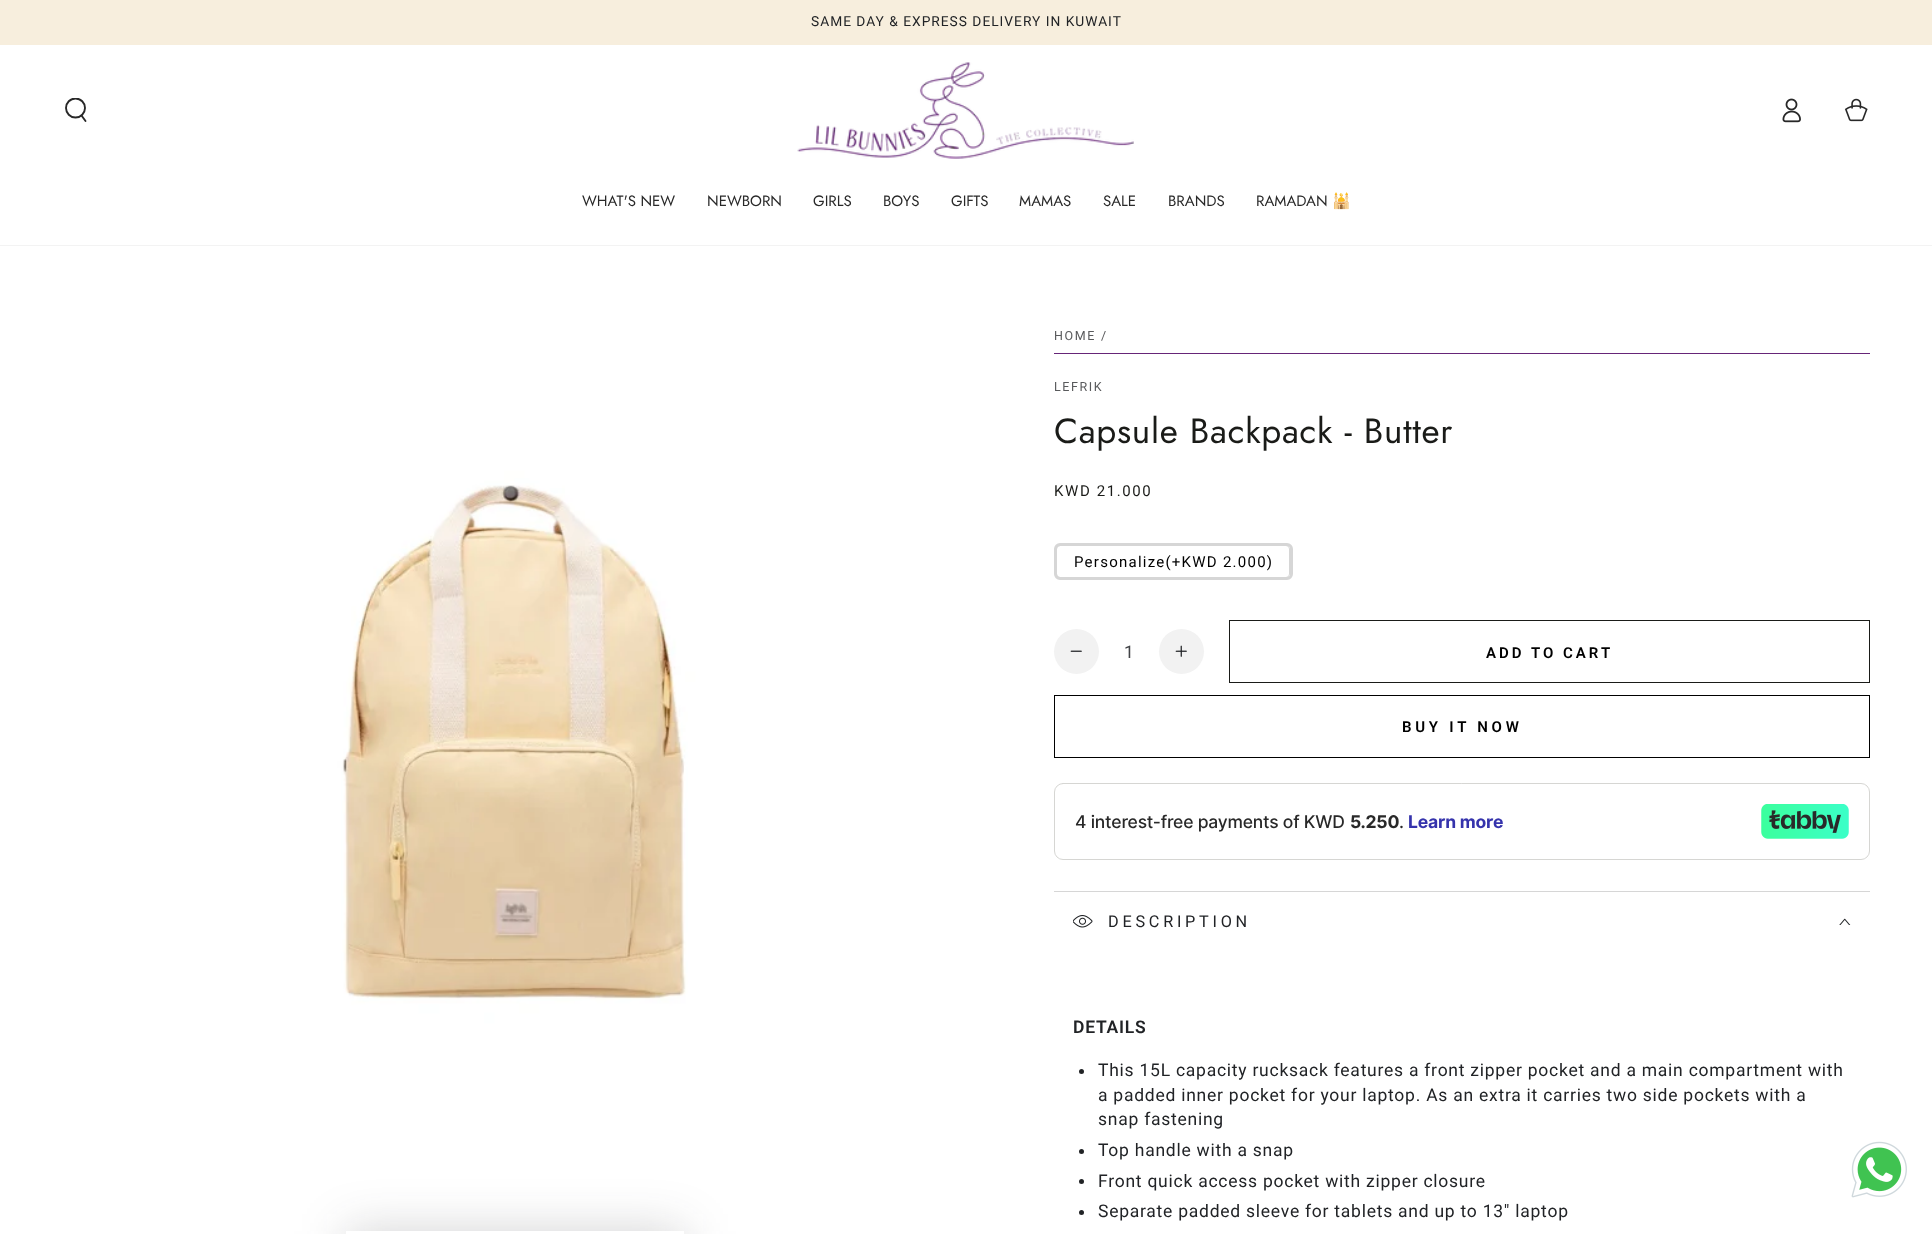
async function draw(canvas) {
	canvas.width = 1932;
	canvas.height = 1234;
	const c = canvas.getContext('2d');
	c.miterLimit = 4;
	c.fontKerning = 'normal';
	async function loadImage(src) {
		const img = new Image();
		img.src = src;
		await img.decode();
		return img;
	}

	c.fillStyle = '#fff';
	c.fillRect(0, 0, 1932, 1234);
	c.fillStyle = '#f7eedd';
	c.fillRect(0, 0, 1932, 45);
	c.letterSpacing = '1px';
	c.font = '13.75px Roboto';
	c.fillStyle = '#212326';
	c.fillText('SAME DAY & EXPRESS DELIVERY IN KUWAIT', 811, 26);
	c.fillStyle = '#f3f3f3';
	c.beginPath();
	c.moveTo(0, 245);
	c.lineTo(0, 246);
	c.lineTo(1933, 246);
	c.lineTo(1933, 46);
	c.lineTo(1932, 46);
	c.lineTo(1932, 245);
	c.closePath();
	c.fill();
	c.save();
	c.beginPath();
	c.rect(64, 98, 25, 25);
	c.clip();
	c.beginPath();
	c.arc(75.5, 108, 9.5, 0, 2 * Math.PI);
	c.strokeStyle = '#282828';
	c.lineWidth = 1.9;
	c.stroke();
	c.restore();
	c.beginPath();
	c.moveTo(81.5, 115.5);
	c.lineTo(85.5, 121);
	c.strokeStyle = '#282828';
	c.lineWidth = 1.9;
	c.lineCap = 'round';
	c.stroke();
	c.drawImage(await loadImage('img1.png'), 797, 62, 337, 97);
	c.drawImage(await loadImage('img2.png'), 1782, 98, 19, 25);
	c.drawImage(await loadImage('img3.png'), 1844, 98, 24, 24);
	c.letterSpacing = '0px';
	c.font = '15px Jost';
	c.fillStyle = '#292929';
	for (const [text, x, y] of [
		['WHAT\'S NEW', 582, 206],
		['NEWBORN', 707, 206],
		['GIRLS', 813, 206],
		['BOYS', 883, 206],
		['GIFTS', 951, 206],
		['MAMAS', 1019, 206],
		['SALE', 1103, 206],
		['BRANDS', 1168, 206],
		['RAMADAN', 1256, 206],
	]) {
		c.fillText(text, x, y);
	}
	c.font = '15px Noto Color Emoji';
	c.fillText('🕌', 1332, 206);
	c.drawImage(await loadImage('img4.png'), 63, 290, 903, 904);
	c.fillStyle = '#21232633';
	c.filter = 'blur(25px)';
	c.beginPath();
	c.rect(346, 1231, 338, 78);
	c.fill();
	c.filter = 'none';
	c.fillStyle = '#fff';
	c.fillRect(346, 1231, 338, 3);
	c.fillStyle = '#662578';
	c.fillRect(1054, 353, 816, 1);
	c.letterSpacing = '1.6px';
	c.font = '12.5px Roboto';
	c.fillStyle = '#595a5c';
	for (const [text, x, y] of [
		['HOME', 1054, 340],
		['/', 1101, 340],
		['LEFRIK', 1054, 391],
	]) {
		c.fillText(text, x, y);
	}
	c.letterSpacing = '0.75px';
	c.font = '35px Jost';
	c.fillStyle = '#1a1b18';
	c.fillText('Capsule Backpack - Butter', 1054, 443);
	c.letterSpacing = '1.6px';
	c.font = '15px Roboto';
	c.fillText('KWD 21.000', 1054, 496);
	c.beginPath();
	c.roundRect(1056.5, 545.5, 233, 32, 3.5);
	c.strokeStyle = '#d6d6d6';
	c.lineWidth = 1;
	c.stroke();
	c.beginPath();
	c.roundRect(1055.5, 544.5, 236, 34, 4.5);
	c.lineWidth = 3;
	c.stroke();
	c.letterSpacing = '1.25px';
	c.fillStyle = '#000';
	c.fillText('Personalize(+KWD 2.000)', 1074, 567);
	c.fillStyle = '#f2f2f2';
	c.beginPath();
	c.arc(1076.5, 651.5, 22.5, 0, 2 * Math.PI);
	c.fill();
	c.drawImage(await loadImage('img5.png'), 1070, 650, 12, 2);
	c.letterSpacing = '0px';
	c.font = '17.5px Roboto';
	c.fillStyle = '#424447';
	c.fillText('1', 1124, 658);
	c.fillStyle = '#f2f2f2';
	c.beginPath();
	c.arc(1181.5, 651.5, 22.5, 0, 2 * Math.PI);
	c.fill();
	c.drawImage(await loadImage('img6.png'), 1175, 645, 12, 12);
	c.strokeStyle = '#1a1b18';
	c.lineWidth = 1;
	c.strokeRect(1229.5, 620.5, 640, 62);
	c.letterSpacing = '3px';
	c.font = '600 15px Roboto';
	c.fillStyle = '#000';
	c.fillText('ADD TO CART', 1486, 658);
	c.strokeStyle = '#000';
	c.strokeRect(1054.5, 695.5, 815, 62);
	c.letterSpacing = '3.75px';
	c.fillText('BUY IT NOW', 1402, 732);
	c.beginPath();
	c.roundRect(1054.5, 783.5, 815, 76, 8.5);
	c.strokeStyle = '#d6d6d3';
	c.stroke();
	c.letterSpacing = '-0.2px';
	c.font = '500 17.5px Inter';
	c.fillStyle = '#292929';
	c.fillText('4 interest-free payments of KWD', 1075, 828);
	c.font = 'bold 17.5px Inter';
	c.fillText('5.250', 1350, 828);
	c.font = '500 17.5px Inter';
	c.fillText('.', 1399, 828);
	c.font = 'bold 17.5px Inter';
	c.fillStyle = '#3533ac';
	c.fillText('Learn more', 1408, 828);
	c.drawImage(await loadImage('img7.png'), 1761, 804, 88, 35);
	c.fillStyle = '#d6d6d6';
	c.fillRect(1054, 891, 816, 1);
	c.drawImage(await loadImage('img8.png'), 1073, 915, 20, 13);
	c.letterSpacing = '3.75px';
	c.font = '16.25px Roboto';
	c.fillStyle = '#212326';
	c.fillText('DESCRIPTION', 1108, 927);
	c.drawImage(await loadImage('img9.png'), 1839, 918, 12, 7);
	c.letterSpacing = '0.75px';
	c.font = '600 17.5px Roboto';
	c.fillText('DETAILS', 1073, 1033);
	c.beginPath();
	c.arc(1081.5, 1071.5, 2.5, 0, 2 * Math.PI);
	c.fill();
	c.font = '17.5px Roboto';
	for (const [text, x, y] of [
		['This 15L capacity rucksack features a front zipper pocket and a main compartment with', 1098, 1076],
		['a padded inner pocket for your laptop. As an extra it carries two side pockets with a', 1098, 1101],
		['snap fastening', 1098, 1125],
	]) {
		c.fillText(text, x, y);
	}
	c.beginPath();
	c.arc(1081.5, 1151.5, 2.5, 0, 2 * Math.PI);
	c.fill();
	c.fillText('Top handle with a snap', 1098, 1156);
	c.beginPath();
	c.arc(1081.5, 1181.5, 2.5, 0, 2 * Math.PI);
	c.fill();
	c.fillText('Front quick access pocket with zipper closure', 1098, 1187);
	c.beginPath();
	c.arc(1081.5, 1212.5, 2.5, 0, 2 * Math.PI);
	c.fill();
	c.fillText('Separate padded sleeve for tablets and up to 13″ laptop', 1098, 1217);
	c.drawImage(await loadImage('img10.png'), 1851, 1141, 56, 57);
}

draw(document.querySelector('canvas'));
